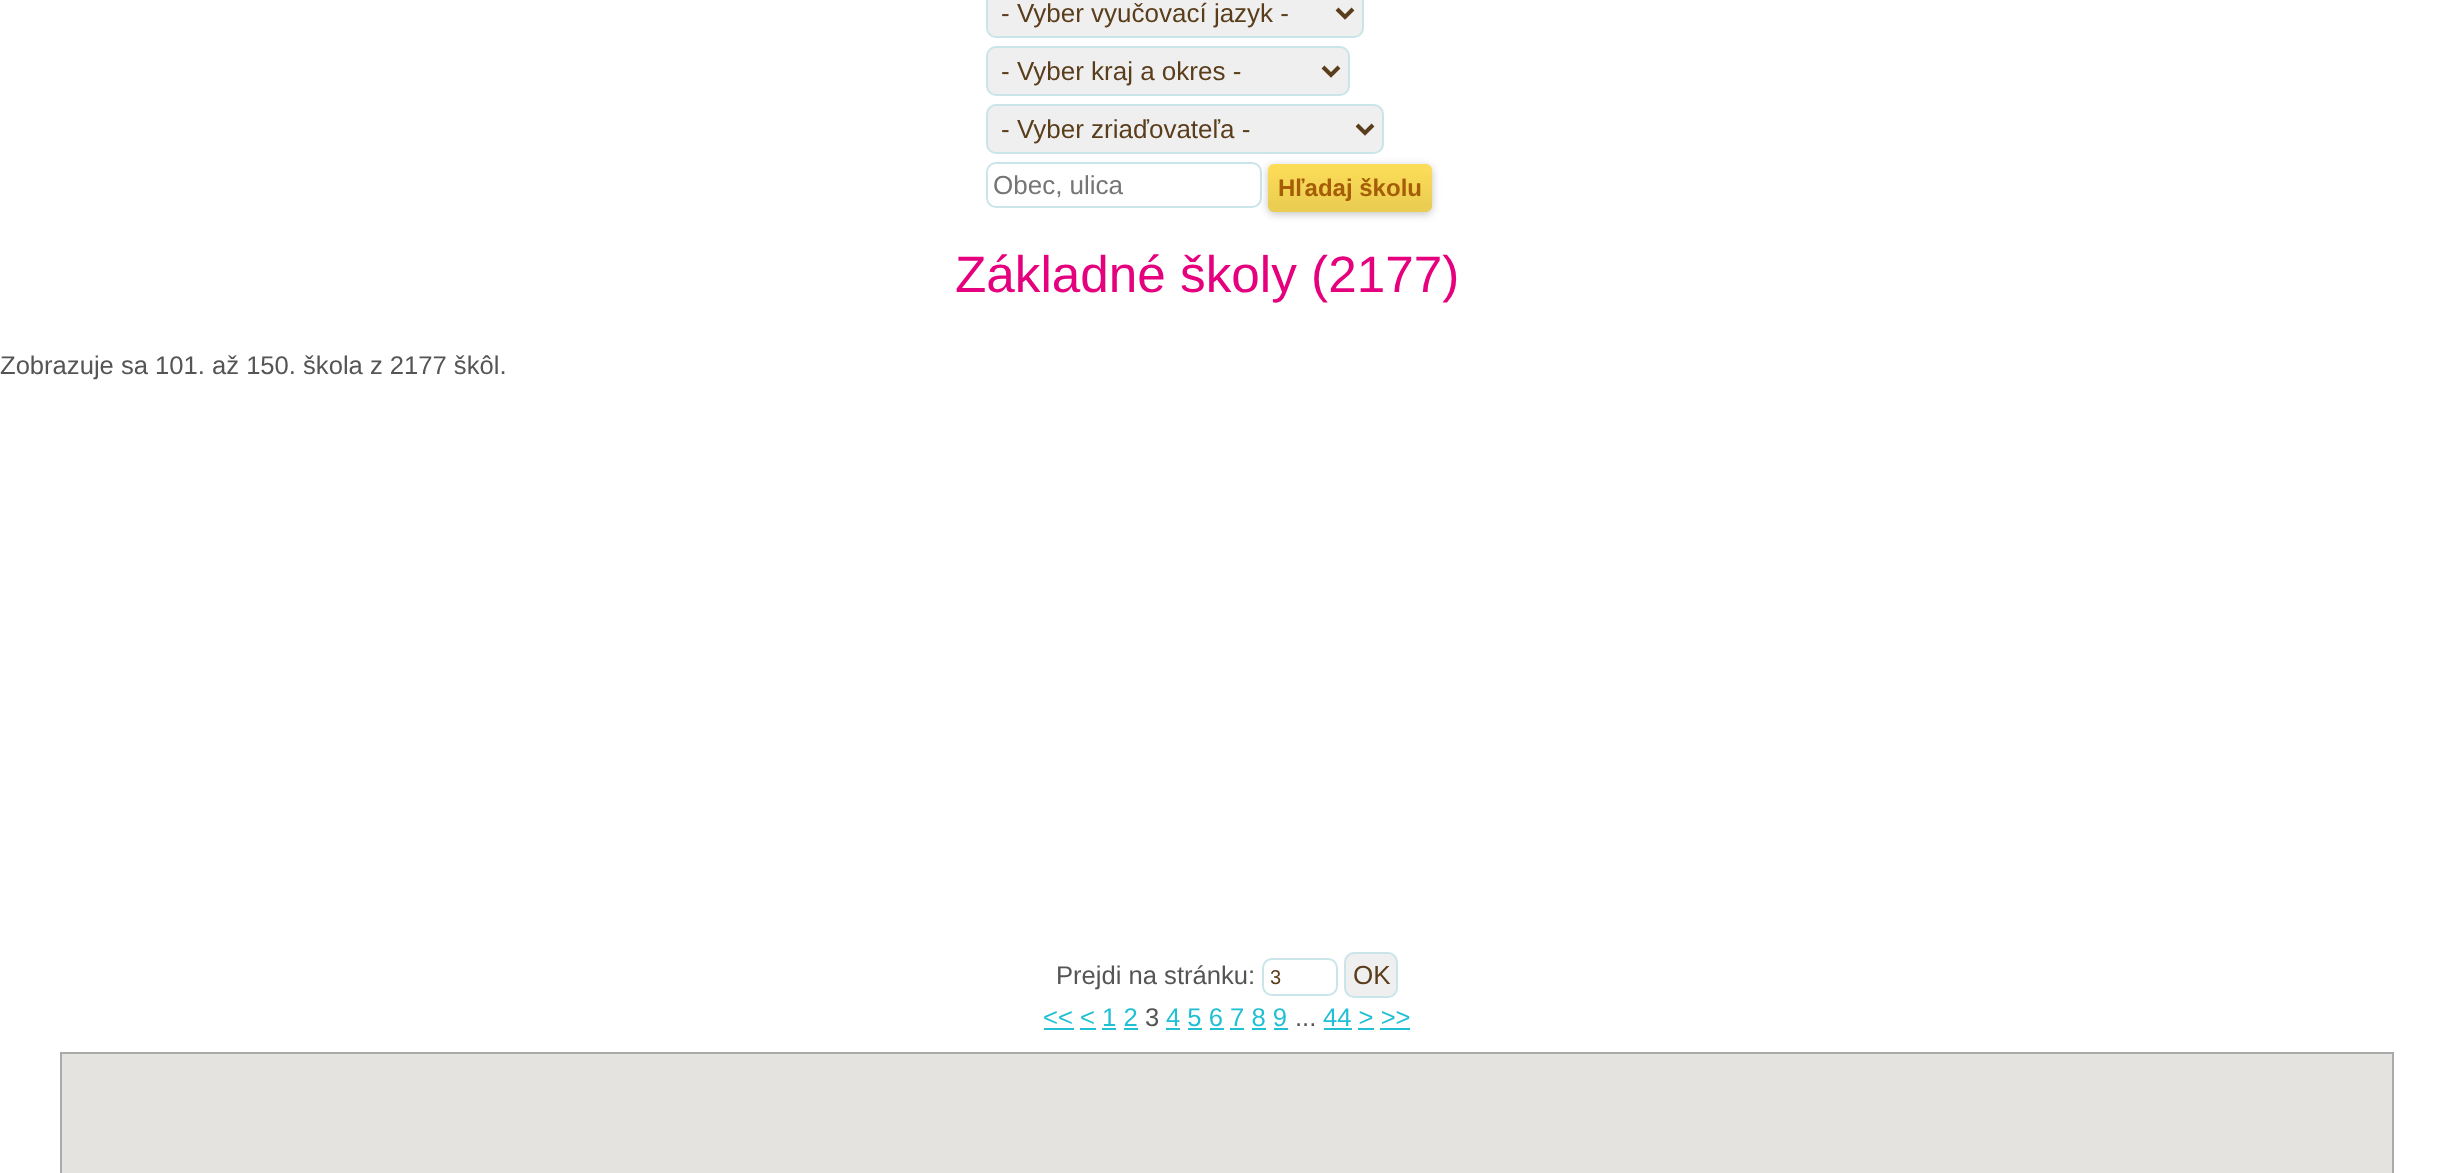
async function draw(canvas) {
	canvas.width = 2454;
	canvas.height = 1173;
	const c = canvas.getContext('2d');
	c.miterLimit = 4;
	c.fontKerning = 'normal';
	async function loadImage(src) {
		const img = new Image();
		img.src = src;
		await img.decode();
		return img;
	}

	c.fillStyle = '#fff';
	c.fillRect(0, 0, 2454, 1173);
	c.fillStyle = '#efefef';
	c.beginPath();
	c.roundRect(987, -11, 376, 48, 9);
	c.fill();
	c.strokeStyle = '#c9e5e9';
	c.lineWidth = 2;
	c.stroke();
	c.beginPath();
	c.moveTo(1337, 9);
	c.lineTo(1345, 17);
	c.lineTo(1353, 9);
	c.strokeStyle = '#5a3d1b';
	c.lineWidth = 4;
	c.stroke();
	c.font = '26px Liberation Sans';
	c.fillStyle = '#5a3d1b';
	c.fillText('- Vyber vyučovací jazyk -', 1001, 22);
	c.fillStyle = '#efefef';
	c.beginPath();
	c.roundRect(987, 47, 362, 48, 9);
	c.fill();
	c.strokeStyle = '#c9e5e9';
	c.lineWidth = 2;
	c.stroke();
	c.beginPath();
	c.moveTo(1323, 67);
	c.lineTo(1331, 75);
	c.lineTo(1339, 67);
	c.strokeStyle = '#5a3d1b';
	c.lineWidth = 4;
	c.stroke();
	c.fillStyle = '#5a3d1b';
	c.fillText('- Vyber kraj a okres -', 1001, 80);
	c.fillStyle = '#efefef';
	c.beginPath();
	c.roundRect(987, 105, 396, 48, 9);
	c.fill();
	c.strokeStyle = '#c9e5e9';
	c.lineWidth = 2;
	c.stroke();
	c.beginPath();
	c.moveTo(1357, 125);
	c.lineTo(1365, 133);
	c.lineTo(1373, 125);
	c.strokeStyle = '#5a3d1b';
	c.lineWidth = 4;
	c.stroke();
	c.fillStyle = '#5a3d1b';
	c.fillText('- Vyber zriaďovateľa -', 1001, 138);
	c.beginPath();
	c.roundRect(987, 163, 274, 44, 9);
	c.strokeStyle = '#c9e5e9';
	c.lineWidth = 2;
	c.stroke();
	c.fillStyle = '#757575';
	c.fillText('Obec, ulica', 993, 194);
	c.fillStyle = '#c2c2c2';
	c.filter = 'blur(4px)';
	c.beginPath();
	c.roundRect(1268, 166, 164, 48, 6);
	c.fill();
	c.filter = 'none';
	c.drawImage(await loadImage('img1.png'), 1268, 164, 164, 48);
	c.font = 'bold 24px Liberation Sans';
	c.fillStyle = '#a55d07';
	c.fillText('Hľadaj školu', 1278, 196);
	c.font = '51.25px Liberation Sans';
	c.fillStyle = '#e5017d';
	c.fillText('Základné školy (2177)', 955, 292);
	c.font = '25.6px Liberation Sans';
	c.fillStyle = '#555';
	c.fillText('Zobrazuje sa 101. až 150. škola z 2177 škôl.', 0, 374);
	c.fillText('Prejdi na stránku:', 1056, 984);
	c.beginPath();
	c.roundRect(1263, 959, 74, 36, 9);
	c.stroke();
	c.font = '20px Liberation Sans';
	c.fillStyle = '#5a3d1b';
	c.fillText('3', 1270, 984);
	c.fillStyle = '#efefef';
	c.beginPath();
	c.roundRect(1345, 953, 52, 44, 9);
	c.fill();
	c.stroke();
	c.font = '26px Liberation Sans';
	c.fillStyle = '#5a3d1b';
	c.fillText('OK', 1353, 984);
	c.font = '25.6px Liberation Sans';
	c.fillStyle = '#20bfd4';
	c.fillText('<< < 1 2', 1043, 1026);
	c.fillRect(1044, 1028, 30, 2);
	c.fillStyle = '#555';
	c.fillText('3', 1145, 1026);
	c.fillStyle = '#20bfd4';
	c.fillText('4 5 6 7 8 9', 1166, 1026);
	c.fillRect(1166, 1028, 14, 2);
	c.fillStyle = '#555';
	c.fillText('...', 1295, 1026);
	c.fillStyle = '#20bfd4';
	c.fillText('44 > >>', 1323, 1026);
	for (const [x, y, w, h, color] of [
		[1324, 1028, 28, 2, '#20bfd4'],
		[1080, 1028, 16, 2, '#20bfd4'],
		[1102, 1028, 14, 2, '#20bfd4'],
		[1124, 1028, 14, 2, '#20bfd4'],
		[1188, 1028, 14, 2, '#20bfd4'],
		[1210, 1028, 14, 2, '#20bfd4'],
		[1230, 1028, 14, 2, '#20bfd4'],
		[1252, 1028, 14, 2, '#20bfd4'],
		[1274, 1028, 14, 2, '#20bfd4'],
		[1358, 1028, 16, 2, '#20bfd4'],
		[1380, 1028, 30, 2, '#20bfd4'],
	]) {
		c.fillStyle = color;
		c.fillRect(x, y, w, h);
	}
	c.strokeStyle = '#aaa';
	c.strokeRect(61, 1053, 2332, 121);
	c.fillStyle = '#e5e3df';
	c.fillRect(62, 1054, 2330, 119);
}

draw(document.querySelector('canvas'));
